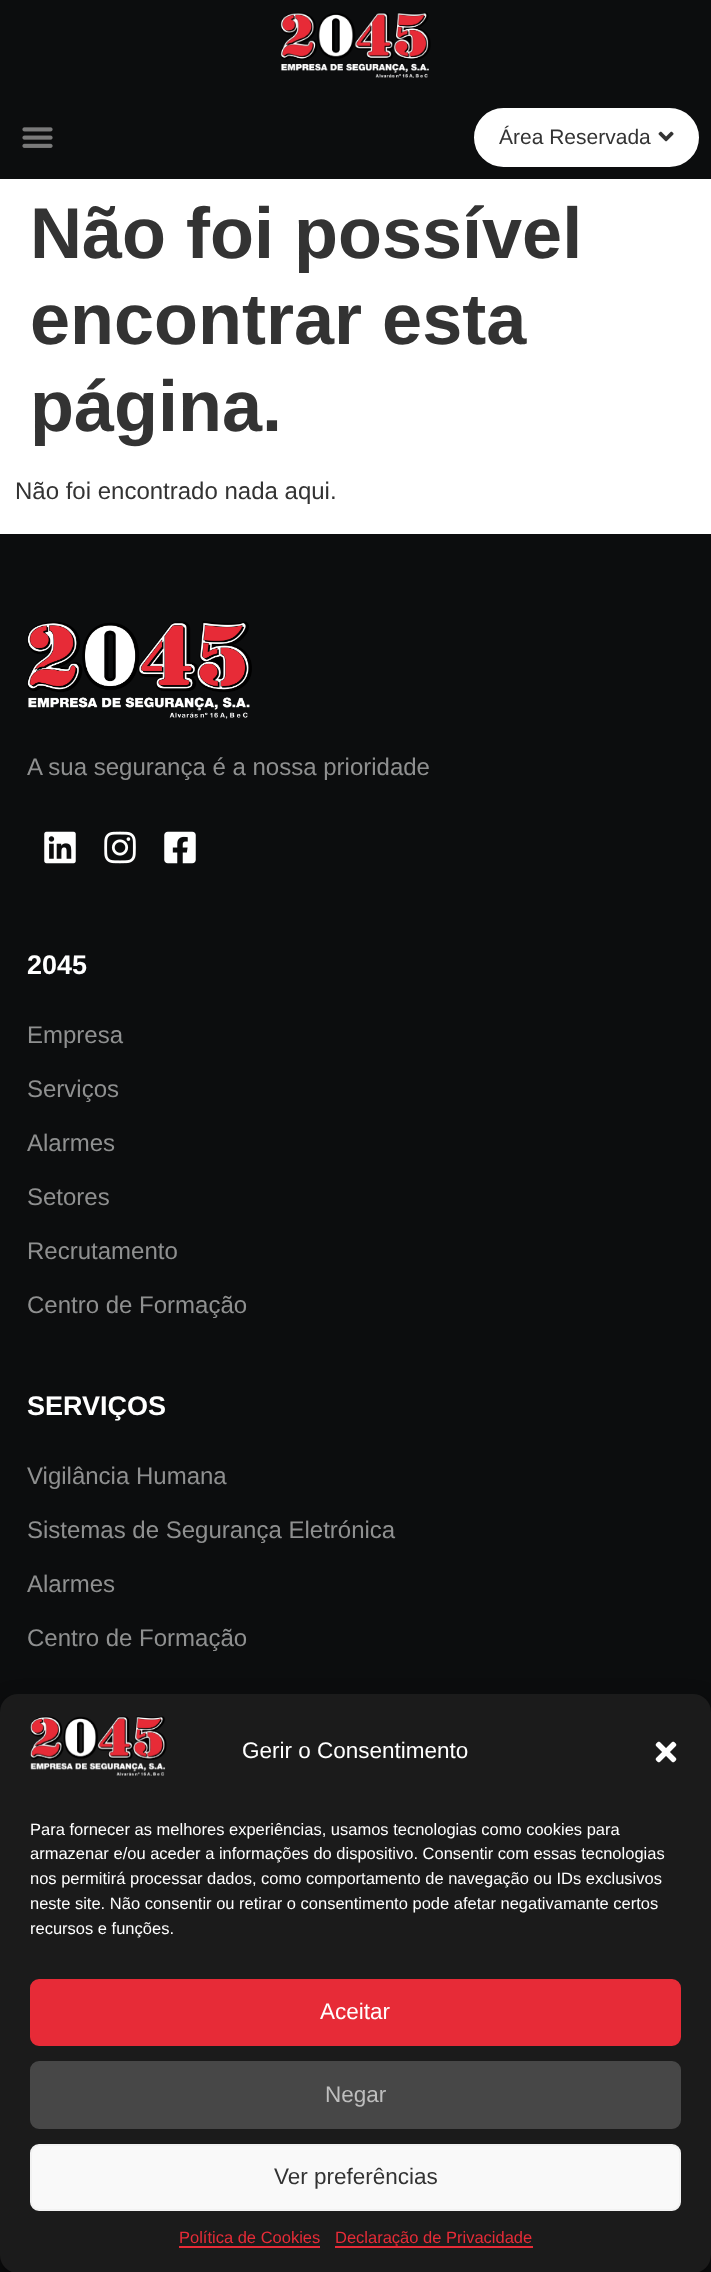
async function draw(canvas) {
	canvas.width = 711;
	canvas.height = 2272;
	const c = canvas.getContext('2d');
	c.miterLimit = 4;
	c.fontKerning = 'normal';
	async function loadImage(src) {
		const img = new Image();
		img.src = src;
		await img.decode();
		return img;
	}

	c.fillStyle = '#fff';
	c.fillRect(0, 0, 711, 2272);
	c.fillStyle = '#0c0d0e';
	c.fillRect(0, 0, 711, 179);
	c.drawImage(await loadImage('img1.png'), 280, 12, 151, 66);
	c.drawImage(await loadImage('img2.png'), 22, 127, 31, 21);
	c.fillStyle = '#fff';
	c.beginPath();
	c.roundRect(475, 109, 223, 57, 28.5);
	c.fill();
	c.strokeStyle = '#fff';
	c.lineWidth = 2;
	c.stroke();
	c.font = '21px Liberation Sans';
	c.fillStyle = '#333';
	c.fillText('Área Reservada', 499, 144);
	c.drawImage(await loadImage('img3.png'), 658, 131, 16, 11);
	c.font = 'bold 72px Liberation Sans';
	for (const [text, x, y] of [
		['Não foi possível', 30, 258],
		['encontrar esta', 30, 344],
		['página.', 30, 431],
	]) {
		c.fillText(text, x, y);
	}
	c.font = '24px Liberation Sans';
	c.fillText('Não foi encontrado nada aqui.', 15, 499);
	c.fillStyle = '#0c0d0e';
	c.fillRect(0, 534, 711, 1178);
	c.drawImage(await loadImage('img4.png'), 27, 621, 225, 98);
	c.fillStyle = '#8f9090';
	c.fillText('A sua segurança é a nossa prioridade', 27, 775);
	c.drawImage(await loadImage('img5.png'), 44, 831, 32, 33);
	c.drawImage(await loadImage('img6.png'), 104, 831, 32, 33);
	c.drawImage(await loadImage('img7.png'), 164, 831, 32, 33);
	c.font = 'bold 27px Liberation Sans';
	c.fillStyle = '#fff';
	c.fillText('2045', 27, 974);
	c.font = '24px Liberation Sans';
	c.fillStyle = '#8f9090';
	for (const [text, x, y] of [
		['Empresa', 27, 1043],
		['Serviços', 27, 1097],
		['Alarmes', 27, 1151],
		['Setores', 27, 1205],
		['Recrutamento', 27, 1259],
		['Centro de Formação', 27, 1313],
	]) {
		c.fillText(text, x, y);
	}
	c.font = 'bold 27px Liberation Sans';
	c.fillStyle = '#fff';
	c.fillText('SERVIÇOS', 27, 1415);
	c.font = '24px Liberation Sans';
	c.fillStyle = '#8f9090';
	for (const [text, x, y] of [
		['Vigilância Humana', 27, 1484],
		['Sistemas de Segurança Eletrónica', 27, 1538],
		['Alarmes', 27, 1592],
		['Centro de Formação', 27, 1646],
	]) {
		c.fillText(text, x, y);
	}
	c.fillStyle = '#0c0d0e';
	c.fillRect(0, 2255, 711, 17);
	c.fillStyle = '#0000003b';
	c.filter = 'blur(4.5px)';
	c.beginPath();
	c.roundRect(0, 1703, 711, 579, 18);
	c.fill();
	c.filter = 'none';
	c.fillStyle = '#00000030';
	c.filter = 'blur(15px)';
	c.beginPath();
	c.roundRect(0, 1709, 711, 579, 18);
	c.fill();
	c.filter = 'none';
	c.fillStyle = '#1b1b1b';
	c.beginPath();
	c.roundRect(0, 1694, 711, 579, 18);
	c.fill();
	c.drawImage(await loadImage('img8.png'), 30, 1716, 137, 60);
	c.font = '22.5px Liberation Sans';
	c.fillStyle = '#fff';
	c.fillText('Gerir o Consentimento', 242, 1758);
	c.drawImage(await loadImage('img9.png'), 655, 1741, 22, 22);
	c.font = '16.5px Liberation Sans';
	for (const [text, x, y] of [
		['Para fornecer as melhores experiências, usamos tecnologias como cookies para', 30, 1835],
		['armazenar e/ou aceder a informações do dispositivo. Consentir com essas tecnologias', 30, 1859],
		['nos permitirá processar dados, como comportamento de navegação ou IDs exclusivos', 30, 1884],
		['neste site. Não consentir ou retirar o consentimento pode afetar negativamante certos', 30, 1909],
		['recursos e funções.', 30, 1934],
	]) {
		c.fillText(text, x, y);
	}
	c.fillStyle = '#e72b37';
	c.beginPath();
	c.roundRect(31, 1980, 649, 65, 8);
	c.fill();
	c.strokeStyle = '#e72b37';
	c.stroke();
	c.font = '22.5px Liberation Sans';
	c.fillStyle = '#fff';
	c.fillText('Aceitar', 320, 2019);
	c.fillStyle = '#474747';
	c.beginPath();
	c.roundRect(31, 2062, 649, 66, 8);
	c.fill();
	c.strokeStyle = '#474747';
	c.stroke();
	c.fillStyle = '#bebebe';
	c.fillText('Negar', 325, 2102);
	c.fillStyle = '#f9f9f9';
	c.beginPath();
	c.roundRect(31, 2145, 649, 65, 8);
	c.fill();
	c.strokeStyle = '#f2f2f2';
	c.stroke();
	c.fillStyle = '#333';
	c.fillText('Ver preferências', 274, 2184);
	c.font = '16.5px Liberation Sans';
	c.fillStyle = '#e72b37';
	c.fillText('Política de Cookies', 179, 2243);
	c.fillRect(179, 2246, 141, 2);
	c.fillRect(335, 2246, 198, 2);
	c.fillText('Declaração de Privacidade', 335, 2243);
}

draw(document.querySelector('canvas'));
